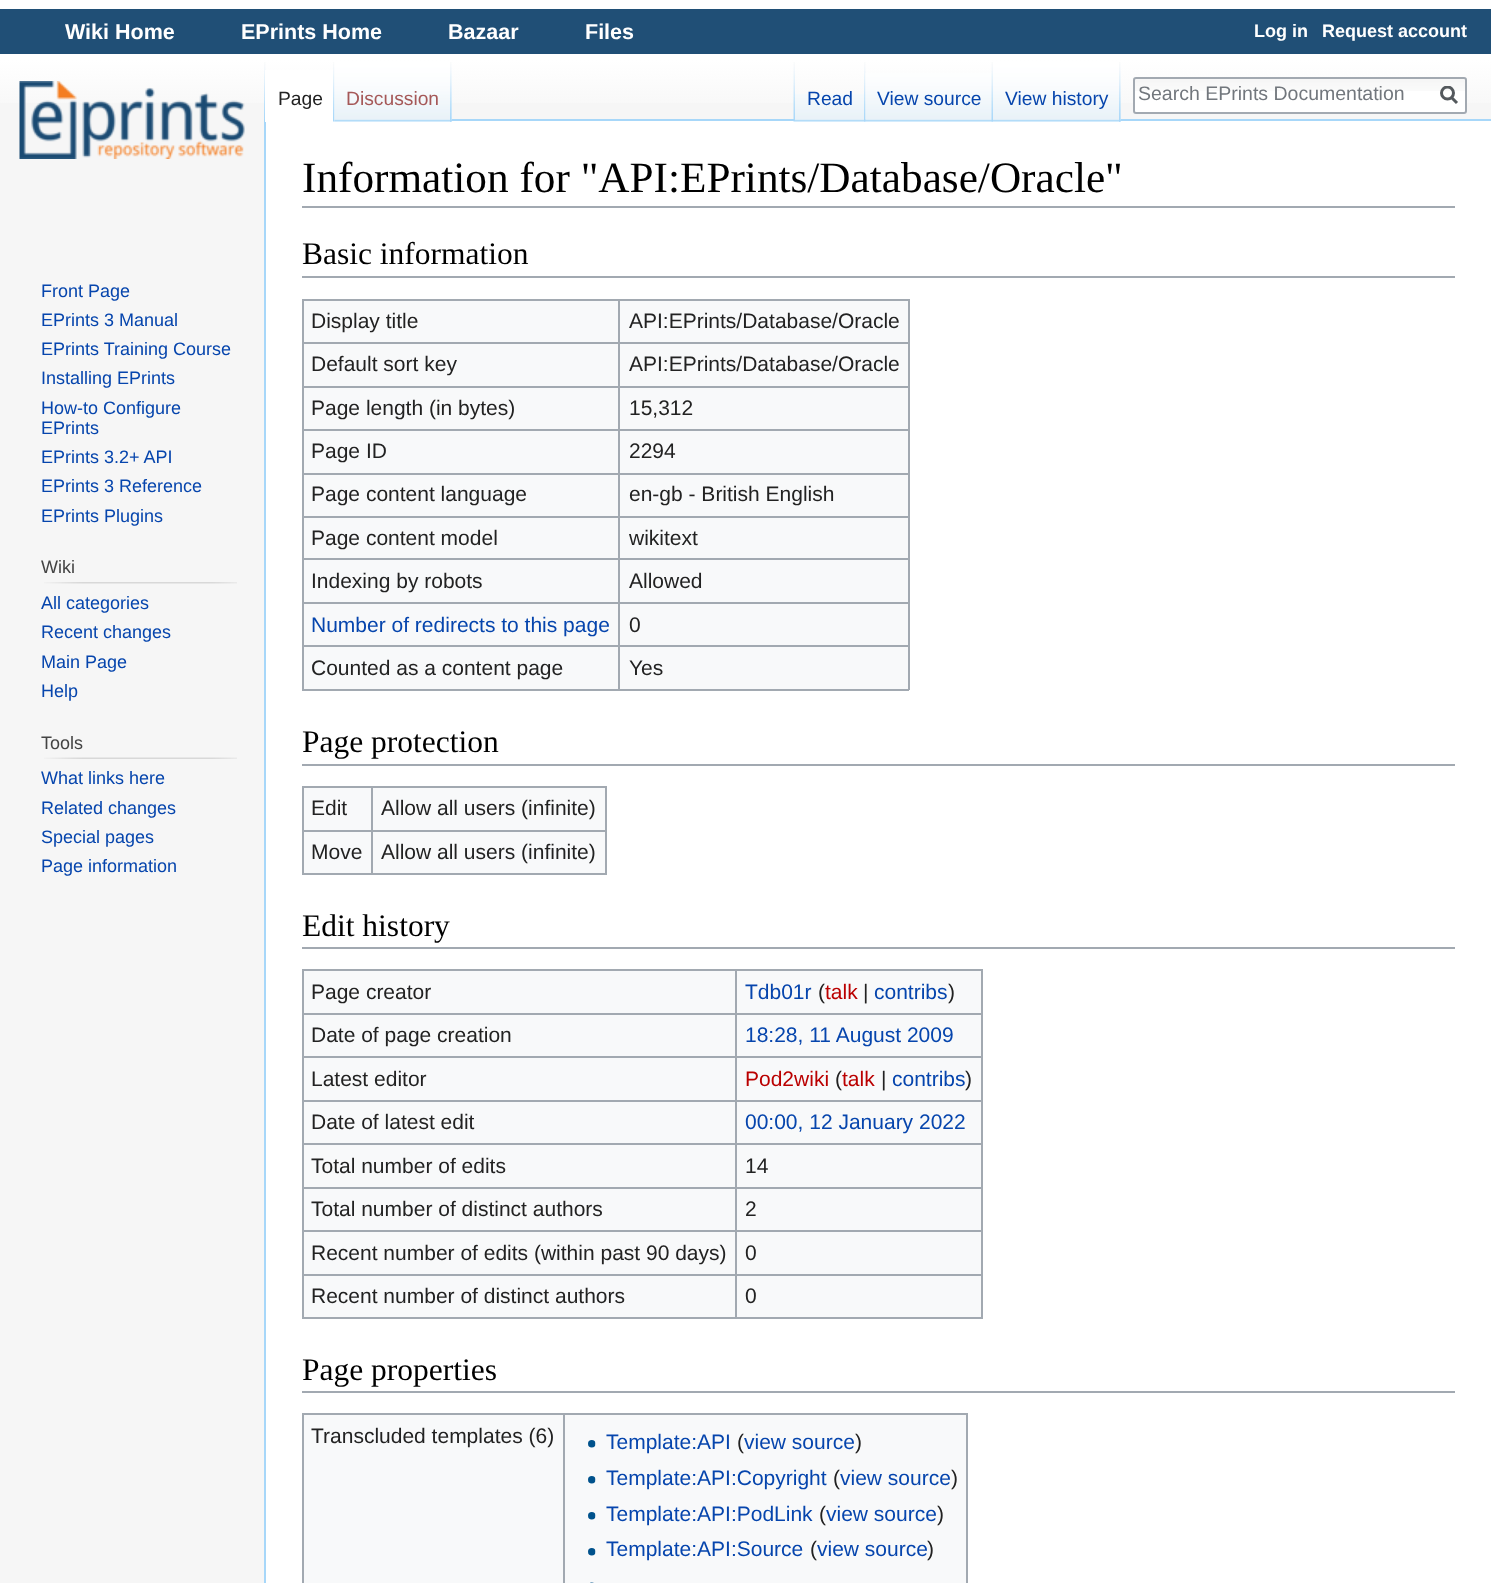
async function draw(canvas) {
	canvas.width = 1491;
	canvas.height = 1583;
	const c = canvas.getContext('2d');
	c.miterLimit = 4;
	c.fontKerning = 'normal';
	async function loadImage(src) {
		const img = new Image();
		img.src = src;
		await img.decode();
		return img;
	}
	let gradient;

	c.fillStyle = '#f6f6f6';
	c.fillRect(0, 0, 1491, 1583);
	gradient = c.createLinearGradient(746, 0, 746, 120);
	gradient.addColorStop(0.5, '#fff');
	gradient.addColorStop(1, '#f6f6f6');
	c.fillStyle = gradient;
	c.fillRect(0, 0, 1491, 103);
	c.fillStyle = '#204f76';
	c.fillRect(0, 9, 1491, 45);
	c.font = 'bold 21.5px Liberation Sans';
	c.fillStyle = '#fff';
	for (const [text, x, y] of [
		['Wiki Home', 65, 39],
		['EPrints Home', 241, 39],
		['Bazaar', 448, 39],
		['Files', 585, 39],
	]) {
		c.fillText(text, x, y);
	}
	c.font = 'bold 18px Liberation Sans';
	c.fillText('Log in', 1254, 37);
	c.fillText('Request account', 1322, 37);
	c.drawImage(await loadImage('img1.png'), 264, 62, 2, 57);
	c.fillRect(266, 121, 1225, 1462);
	c.fillStyle = '#a7d7f9';
	c.fillRect(451, 119, 1040, 2);
	c.drawImage(await loadImage('img2.png'), 450, 62, 2, 60);
	c.fillRect(264, 119, 2, 1464);
	c.fillStyle = '#fff';
	c.fillRect(265, 70, 70, 52);
	c.drawImage(await loadImage('img3.png'), 333, 62, 2, 60);
	c.font = '19.25px Liberation Sans';
	c.fillStyle = '#222';
	c.fillText('Page', 278, 105);
	c.drawImage(await loadImage('img4.png'), 334, 62, 118, 60);
	c.drawImage(await loadImage('img5.png'), 450, 62, 2, 60);
	c.fillStyle = '#a55858';
	c.fillText('Discussion', 346, 105);
	c.drawImage(await loadImage('img6.png'), 793, 62, 2, 60);
	c.drawImage(await loadImage('img2.png'), 1119, 62, 2, 60);
	c.drawImage(await loadImage('img7.png'), 795, 94, 71, 28);
	c.drawImage(await loadImage('img8.png'), 864, 62, 2, 60);
	c.fillStyle = '#0645ad';
	c.fillText('Read', 807, 105);
	c.drawImage(await loadImage('img9.png'), 865, 73, 128, 49);
	c.drawImage(await loadImage('img10.png'), 991, 62, 2, 60);
	c.fillText('View source', 877, 105);
	c.drawImage(await loadImage('img11.png'), 993, 62, 128, 60);
	c.drawImage(await loadImage('img5.png'), 1119, 62, 2, 60);
	c.fillText('View history', 1005, 105);
	c.fillStyle = '#fff';
	c.beginPath();
	c.roundRect(1133, 77, 334, 37, 3);
	c.fill();
	c.drawImage(await loadImage('img12.png'), 1133, 78, 334, 13);
	c.beginPath();
	c.roundRect(1134, 78, 332, 35, 2);
	c.strokeStyle = '#a2a9b1';
	c.lineWidth = 2;
	c.stroke();
	c.font = '19.5px Liberation Sans';
	c.fillStyle = '#72777d';
	c.fillText('Search EPrints Documentation', 1138, 100);
	c.beginPath();
	c.moveTo(1457, 103);
	c.lineTo(1451, 97);
	c.strokeStyle = '#54595d';
	c.lineWidth = 3;
	c.stroke();
	c.save();
	c.beginPath();
	c.rect(1440, 86, 18, 19);
	c.clip();
	c.beginPath();
	c.arc(1447.5, 93, 6, 0, 2 * Math.PI);
	c.stroke();
	c.restore();
	c.drawImage(await loadImage('img13.png'), 19, 81, 226, 78);
	c.font = '18px Liberation Sans';
	c.fillStyle = '#0645ad';
	for (const [text, x, y] of [
		['Front Page', 41, 297],
		['EPrints 3 Manual', 41, 326],
		['EPrints Training Course', 41, 355],
		['Installing EPrints', 41, 384],
		['How-to Configure', 41, 414],
		['EPrints', 41, 434],
		['EPrints 3.2+ API', 41, 463],
		['EPrints 3 Reference', 41, 492],
		['EPrints Plugins', 41, 522],
	]) {
		c.fillText(text, x, y);
	}
	c.fillStyle = '#444';
	c.fillText('Wiki', 41, 573);
	c.drawImage(await loadImage('img14.png'), 44, 582, 193, 2);
	c.fillStyle = '#0645ad';
	for (const [text, x, y] of [
		['All categories', 41, 609],
		['Recent changes', 41, 638],
		['Main Page', 41, 668],
		['Help', 41, 697],
	]) {
		c.fillText(text, x, y);
	}
	c.fillStyle = '#444';
	c.fillText('Tools', 41, 749);
	c.drawImage(await loadImage('img15.png'), 44, 757, 193, 2);
	c.fillStyle = '#0645ad';
	for (const [text, x, y] of [
		['What links here', 41, 784],
		['Related changes', 41, 814],
		['Special pages', 41, 843],
		['Page information', 41, 872],
	]) {
		c.fillText(text, x, y);
	}
	c.fillStyle = '#a2a9b1';
	c.fillRect(302, 206, 1153, 2);
	c.font = '43.25px Liberation Serif';
	c.fillStyle = '#000';
	c.fillText('Information for "API:EPrints/Database/Oracle"', 302, 192);
	c.fillStyle = '#a2a9b1';
	c.fillRect(302, 276, 1153, 2);
	c.font = '31.5px Liberation Serif';
	c.fillStyle = '#000';
	c.fillText('Basic information', 302, 264);
	for (const [x, y, w, h, color] of [
		[304, 301, 604, 388, '#f8f9fa'],
		[302, 299, 607, 2, '#a2a9b1'],
		[908, 299, 2, 391, '#a2a9b1'],
		[302, 689, 607, 2, '#a2a9b1'],
		[302, 299, 2, 391, '#a2a9b1'],
	]) {
		c.fillStyle = color;
		c.fillRect(x, y, w, h);
	}
	c.font = '21px Liberation Sans';
	c.fillStyle = '#222';
	c.fillText('Display title', 311, 328);
	for (const [x, y, w, h, color] of [
		[618, 342, 291, 2, '#a2a9b1'],
		[618, 386, 291, 2, '#a2a9b1'],
		[618, 429, 291, 2, '#a2a9b1'],
		[618, 473, 291, 2, '#a2a9b1'],
		[618, 516, 291, 2, '#a2a9b1'],
		[618, 558, 291, 2, '#a2a9b1'],
		[618, 602, 291, 2, '#a2a9b1'],
		[618, 645, 291, 2, '#a2a9b1'],
		[618, 645, 2, 45, '#a2a9b1'],
		[302, 645, 318, 2, '#a2a9b1'],
		[618, 602, 2, 45, '#a2a9b1'],
		[302, 602, 318, 2, '#a2a9b1'],
		[618, 558, 2, 45, '#a2a9b1'],
		[302, 558, 318, 2, '#a2a9b1'],
		[618, 516, 2, 44, '#a2a9b1'],
		[302, 516, 318, 2, '#a2a9b1'],
		[618, 473, 2, 45, '#a2a9b1'],
		[302, 473, 318, 2, '#a2a9b1'],
		[618, 429, 2, 45, '#a2a9b1'],
		[302, 429, 318, 2, '#a2a9b1'],
		[618, 386, 2, 45, '#a2a9b1'],
		[302, 386, 318, 2, '#a2a9b1'],
		[618, 342, 2, 45, '#a2a9b1'],
		[302, 342, 318, 2, '#a2a9b1'],
		[618, 299, 2, 45, '#a2a9b1'],
	]) {
		c.fillStyle = color;
		c.fillRect(x, y, w, h);
	}
	c.fillStyle = '#222';
	for (const [text, x, y] of [
		['API:EPrints/Database/Oracle', 629, 328],
		['Default sort key', 311, 371],
		['API:EPrints/Database/Oracle', 629, 371],
		['Page length (in bytes)', 311, 415],
		['15,312', 629, 415],
		['Page ID', 311, 458],
		['2294', 629, 458],
		['Page content language', 311, 501],
		['en-gb - British English', 629, 501],
		['Page content model', 311, 545],
		['wikitext', 629, 545],
		['Indexing by robots', 311, 588],
		['Allowed', 629, 588],
	]) {
		c.fillText(text, x, y);
	}
	c.fillStyle = '#0645ad';
	c.fillText('Number of redirects to this page', 311, 632);
	c.fillStyle = '#222';
	for (const [text, x, y] of [
		['0', 629, 632],
		['Counted as a content page', 311, 675],
		['Yes', 629, 675],
	]) {
		c.fillText(text, x, y);
	}
	c.fillStyle = '#a2a9b1';
	c.fillRect(302, 764, 1153, 2);
	c.font = '31.5px Liberation Serif';
	c.fillStyle = '#000';
	c.fillText('Page protection', 302, 752);
	for (const [x, y, w, h, color] of [
		[304, 788, 301, 85, '#f8f9fa'],
		[302, 786, 304, 2, '#a2a9b1'],
		[605, 786, 2, 89, '#a2a9b1'],
		[302, 873, 304, 2, '#a2a9b1'],
		[302, 786, 2, 89, '#a2a9b1'],
	]) {
		c.fillStyle = color;
		c.fillRect(x, y, w, h);
	}
	c.font = '21px Liberation Sans';
	c.fillStyle = '#222';
	c.fillText('Edit', 311, 815);
	for (const [x, y, w, h, color] of [
		[371, 830, 235, 2, '#a2a9b1'],
		[371, 830, 2, 45, '#a2a9b1'],
		[302, 830, 70, 2, '#a2a9b1'],
		[371, 786, 2, 45, '#a2a9b1'],
	]) {
		c.fillStyle = color;
		c.fillRect(x, y, w, h);
	}
	c.fillStyle = '#222';
	for (const [text, x, y] of [
		['Allow all users (infinite)', 381, 815],
		['Move', 311, 859],
		['Allow all users (infinite)', 381, 859],
	]) {
		c.fillText(text, x, y);
	}
	c.fillStyle = '#a2a9b1';
	c.fillRect(302, 947, 1153, 2);
	c.font = '31.5px Liberation Serif';
	c.fillStyle = '#000';
	c.fillText('Edit history', 302, 936);
	for (const [x, y, w, h, color] of [
		[304, 971, 677, 346, '#f8f9fa'],
		[302, 969, 681, 2, '#a2a9b1'],
		[981, 969, 2, 350, '#a2a9b1'],
		[302, 1317, 681, 2, '#a2a9b1'],
		[302, 969, 2, 350, '#a2a9b1'],
	]) {
		c.fillStyle = color;
		c.fillRect(x, y, w, h);
	}
	c.font = '21px Liberation Sans';
	c.fillStyle = '#222';
	c.fillText('Page creator', 311, 999);
	for (const [x, y, w, h, color] of [
		[735, 1013, 248, 2, '#a2a9b1'],
		[735, 1056, 248, 2, '#a2a9b1'],
		[735, 1100, 248, 2, '#a2a9b1'],
		[735, 1143, 248, 2, '#a2a9b1'],
		[735, 1187, 248, 2, '#a2a9b1'],
		[735, 1230, 248, 2, '#a2a9b1'],
		[735, 1274, 248, 2, '#a2a9b1'],
		[735, 1274, 2, 45, '#a2a9b1'],
		[302, 1274, 435, 2, '#a2a9b1'],
		[735, 1230, 2, 45, '#a2a9b1'],
		[302, 1230, 435, 2, '#a2a9b1'],
		[735, 1187, 2, 45, '#a2a9b1'],
		[302, 1187, 435, 2, '#a2a9b1'],
		[735, 1143, 2, 45, '#a2a9b1'],
		[302, 1143, 435, 2, '#a2a9b1'],
		[735, 1100, 2, 45, '#a2a9b1'],
		[302, 1100, 435, 2, '#a2a9b1'],
		[735, 1056, 2, 45, '#a2a9b1'],
		[302, 1056, 435, 2, '#a2a9b1'],
		[735, 1013, 2, 45, '#a2a9b1'],
		[302, 1013, 435, 2, '#a2a9b1'],
		[735, 969, 2, 45, '#a2a9b1'],
	]) {
		c.fillStyle = color;
		c.fillRect(x, y, w, h);
	}
	c.fillStyle = '#0645ad';
	c.fillText('Tdb01r', 745, 999);
	c.fillStyle = '#222';
	c.fillText('(', 818, 999);
	c.fillStyle = '#ba0000';
	c.fillText('talk', 825, 999);
	c.fillStyle = '#222';
	c.fillText('|', 863, 999);
	c.fillStyle = '#0645ad';
	c.fillText('contribs', 874, 999);
	c.fillStyle = '#222';
	c.fillText(')', 948, 999);
	c.fillText('Date of page creation', 311, 1042);
	c.fillStyle = '#0645ad';
	c.fillText('18:28, 11 August 2009', 745, 1042);
	c.fillStyle = '#222';
	c.fillText('Latest editor', 311, 1086);
	c.fillStyle = '#ba0000';
	c.fillText('Pod2wiki', 745, 1086);
	c.fillStyle = '#222';
	c.fillText('(', 835, 1086);
	c.fillStyle = '#ba0000';
	c.fillText('talk', 842, 1086);
	c.fillStyle = '#222';
	c.fillText('|', 881, 1086);
	c.fillStyle = '#0645ad';
	c.fillText('contribs', 892, 1086);
	c.fillStyle = '#222';
	c.fillText(')', 965, 1086);
	c.fillText('Date of latest edit', 311, 1129);
	c.fillStyle = '#0645ad';
	c.fillText('00:00, 12 January 2022', 745, 1129);
	c.fillStyle = '#222';
	for (const [text, x, y] of [
		['Total number of edits', 311, 1173],
		['14', 745, 1173],
		['Total number of distinct authors', 311, 1216],
		['2', 745, 1216],
		['Recent number of edits (within past 90 days)', 311, 1260],
		['0', 745, 1260],
		['Recent number of distinct authors', 311, 1303],
		['0', 745, 1303],
	]) {
		c.fillText(text, x, y);
	}
	c.fillStyle = '#a2a9b1';
	c.fillRect(302, 1391, 1153, 2);
	c.font = '31.5px Liberation Serif';
	c.fillStyle = '#000';
	c.fillText('Page properties', 302, 1380);
	for (const [x, y, w, h, color] of [
		[304, 1415, 662, 168, '#f8f9fa'],
		[302, 1413, 666, 2, '#a2a9b1'],
		[966, 1413, 2, 170, '#a2a9b1'],
		[302, 1413, 2, 170, '#a2a9b1'],
	]) {
		c.fillStyle = color;
		c.fillRect(x, y, w, h);
	}
	c.font = '21px Liberation Sans';
	c.fillStyle = '#222';
	c.fillText('Transcluded templates (6)', 311, 1443);
	c.fillStyle = '#a2a9b1';
	c.fillRect(563, 1413, 2, 170);
	c.drawImage(await loadImage('img16.png'), 588, 1440, 8, 8);
	c.fillStyle = '#0645ad';
	c.fillText('Template:API', 606, 1449);
	c.fillStyle = '#222';
	c.fillText('(', 737, 1449);
	c.fillStyle = '#0645ad';
	c.fillText('view source', 744, 1449);
	c.fillStyle = '#222';
	c.fillText(')', 855, 1449);
	c.drawImage(await loadImage('img16.png'), 588, 1476, 8, 8);
	c.fillStyle = '#0645ad';
	c.fillText('Template:API:Copyright', 606, 1485);
	c.fillStyle = '#222';
	c.fillText('(', 833, 1485);
	c.fillStyle = '#0645ad';
	c.fillText('view source', 840, 1485);
	c.fillStyle = '#222';
	c.fillText(')', 951, 1485);
	c.drawImage(await loadImage('img16.png'), 588, 1512, 8, 8);
	c.fillStyle = '#0645ad';
	c.fillText('Template:API:PodLink', 606, 1521);
	c.fillStyle = '#222';
	c.fillText('(', 819, 1521);
	c.fillStyle = '#0645ad';
	c.fillText('view source', 826, 1521);
	c.fillStyle = '#222';
	c.fillText(')', 937, 1521);
	c.drawImage(await loadImage('img16.png'), 588, 1548, 8, 8);
	c.fillStyle = '#0645ad';
	c.fillText('Template:API:Source', 606, 1556);
	c.fillStyle = '#222';
	c.fillText('(', 810, 1556);
	c.fillStyle = '#0645ad';
	c.fillText('view source', 817, 1556);
	c.fillStyle = '#222';
	c.fillText(')', 927, 1556);
	c.drawImage(await loadImage('img17.png'), 590, 1582, 4, 1);
}

draw(document.querySelector('canvas'));
